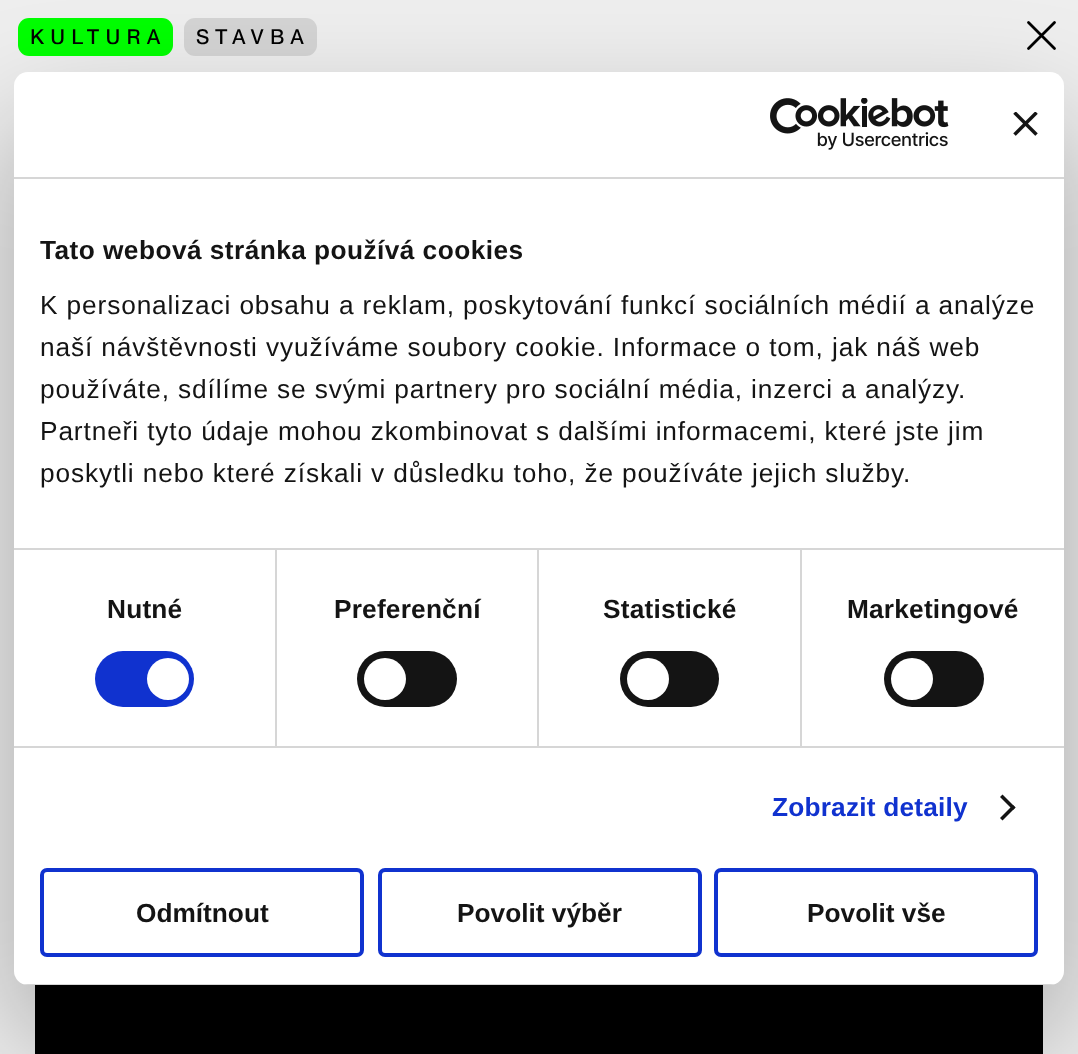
async function draw(canvas) {
	canvas.width = 1078;
	canvas.height = 1054;
	const c = canvas.getContext('2d');
	c.miterLimit = 4;
	c.fontKerning = 'normal';
	async function loadImage(src) {
		const img = new Image();
		img.src = src;
		await img.decode();
		return img;
	}

	c.fillStyle = '#eee';
	c.fillRect(0, 0, 1078, 1054);
	c.fillStyle = '#0f0';
	c.beginPath();
	c.roundRect(18, 18, 155, 38, 11);
	c.fill();
	c.letterSpacing = '6.25px';
	c.font = '21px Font';
	c.fillStyle = '#000';
	c.fillText('KULTURA', 30, 44);
	c.fillStyle = '#d4d4d4';
	c.beginPath();
	c.roundRect(184, 18, 133, 38, 11);
	c.fill();
	c.fillStyle = '#000';
	c.fillText('STAVBA', 196, 44);
	c.beginPath();
	c.moveTo(1054.5, 22.5);
	c.lineTo(1028.5, 48.5);
	c.moveTo(1028.5, 22.5);
	c.lineTo(1054.5, 48.5);
	c.strokeStyle = '#000';
	c.lineWidth = 2.8;
	c.lineCap = 'round';
	c.stroke();
	c.fillRect(35, 985, 1008, 69);
	c.fillStyle = '#0000004d';
	c.filter = 'blur(59.5px)';
	c.beginPath();
	c.roundRect(14, 128, 1050, 913, 14);
	c.fill();
	c.filter = 'none';
	c.fillStyle = '#fff';
	c.beginPath();
	c.roundRect(14, 72, 1050, 913, 14);
	c.fill();
	c.fillStyle = '#d6d6d6';
	c.fillRect(14, 177, 1050, 2);
	c.drawImage(await loadImage('img1.png'), 770, 98, 179, 52);
	c.drawImage(await loadImage('img2.png'), 1013, 112, 25, 24);
	c.fillRect(14, 548, 1050, 2);
	c.letterSpacing = '0.45px';
	c.font = 'bold 26.25px Liberation Sans';
	c.fillStyle = '#141414';
	c.fillText('Tato webová stránka používá cookies', 40, 259);
	c.letterSpacing = '0.88px';
	c.font = '26.25px Liberation Sans';
	for (const [text, x, y] of [
		['K personalizaci obsahu a reklam, poskytování funkcí sociálních médií a analýze', 40, 314],
		['naší návštěvnosti využíváme soubory cookie. Informace o tom, jak náš web', 40, 356],
		['používáte, sdílíme se svými partnery pro sociální média, inzerci a analýzy.', 40, 398],
		['Partneři tyto údaje mohou zkombinovat s dalšími informacemi, které jste jim', 40, 440],
		['poskytli nebo které získali v důsledku toho, že používáte jejich služby.', 40, 482],
	]) {
		c.fillText(text, x, y);
	}
	c.fillStyle = '#d6d6d6';
	c.fillRect(14, 746, 1050, 2);
	c.fillRect(275, 550, 2, 196);
	c.letterSpacing = '0.2px';
	c.font = 'bold 26.25px Liberation Sans';
	c.fillStyle = '#141414';
	c.fillText('Nutné', 107, 618);
	c.fillStyle = '#1032cf';
	c.beginPath();
	c.roundRect(95, 651, 99, 56, 28);
	c.fill();
	c.fillStyle = '#fff';
	c.beginPath();
	c.arc(168, 679, 21, 0, 2 * Math.PI);
	c.fill();
	c.fillStyle = '#d6d6d6';
	c.fillRect(537, 550, 2, 196);
	c.fillStyle = '#141414';
	c.fillText('Preferenční', 334, 618);
	c.beginPath();
	c.roundRect(357, 651, 100, 56, 28);
	c.fill();
	c.fillStyle = '#fff';
	c.beginPath();
	c.arc(385, 679, 21, 0, 2 * Math.PI);
	c.fill();
	c.fillStyle = '#d6d6d6';
	c.fillRect(800, 550, 2, 196);
	c.fillStyle = '#141414';
	c.fillText('Statistické', 603, 618);
	c.beginPath();
	c.roundRect(620, 651, 99, 56, 28);
	c.fill();
	c.fillStyle = '#fff';
	c.beginPath();
	c.arc(648, 679, 21, 0, 2 * Math.PI);
	c.fill();
	c.fillStyle = '#141414';
	c.fillText('Marketingové', 847, 618);
	c.beginPath();
	c.roundRect(884, 651, 100, 56, 28);
	c.fill();
	c.fillStyle = '#fff';
	c.beginPath();
	c.arc(912, 679, 21, 0, 2 * Math.PI);
	c.fill();
	c.fillStyle = '#1032cf';
	c.fillText('Zobrazit detaily', 772, 816);
	c.fillStyle = '#141414';
	c.beginPath();
	c.moveTo(1002.5, 794.5);
	c.lineTo(1015.5, 807.5);
	c.lineTo(1013, 810);
	c.lineTo(1000, 797);
	c.closePath();
	c.fill();
	c.beginPath();
	c.moveTo(1013, 805);
	c.lineTo(1015.5, 807.5);
	c.lineTo(1002.5, 820.5);
	c.lineTo(1000, 818);
	c.closePath();
	c.fill();
	c.save();
	c.beginPath();
	c.roundRect(14, 72, 1050, 913, 14);
	c.clip();
	c.fillStyle = '#d6d6d6';
	c.fillRect(23, 984, 1032, 1);
	c.restore();
	c.beginPath();
	c.roundRect(42, 870, 320, 85, 5);
	c.strokeStyle = '#1032cf';
	c.lineWidth = 4;
	c.stroke();
	c.letterSpacing = '0px';
	c.fillText('Odmítnout', 136, 922);
	c.beginPath();
	c.roundRect(380, 870, 320, 85, 5);
	c.stroke();
	c.fillText('Povolit výběr', 457, 922);
	c.beginPath();
	c.roundRect(716, 870, 320, 85, 5);
	c.stroke();
	c.fillText('Povolit vše', 807, 922);
}

draw(document.querySelector('canvas'));
